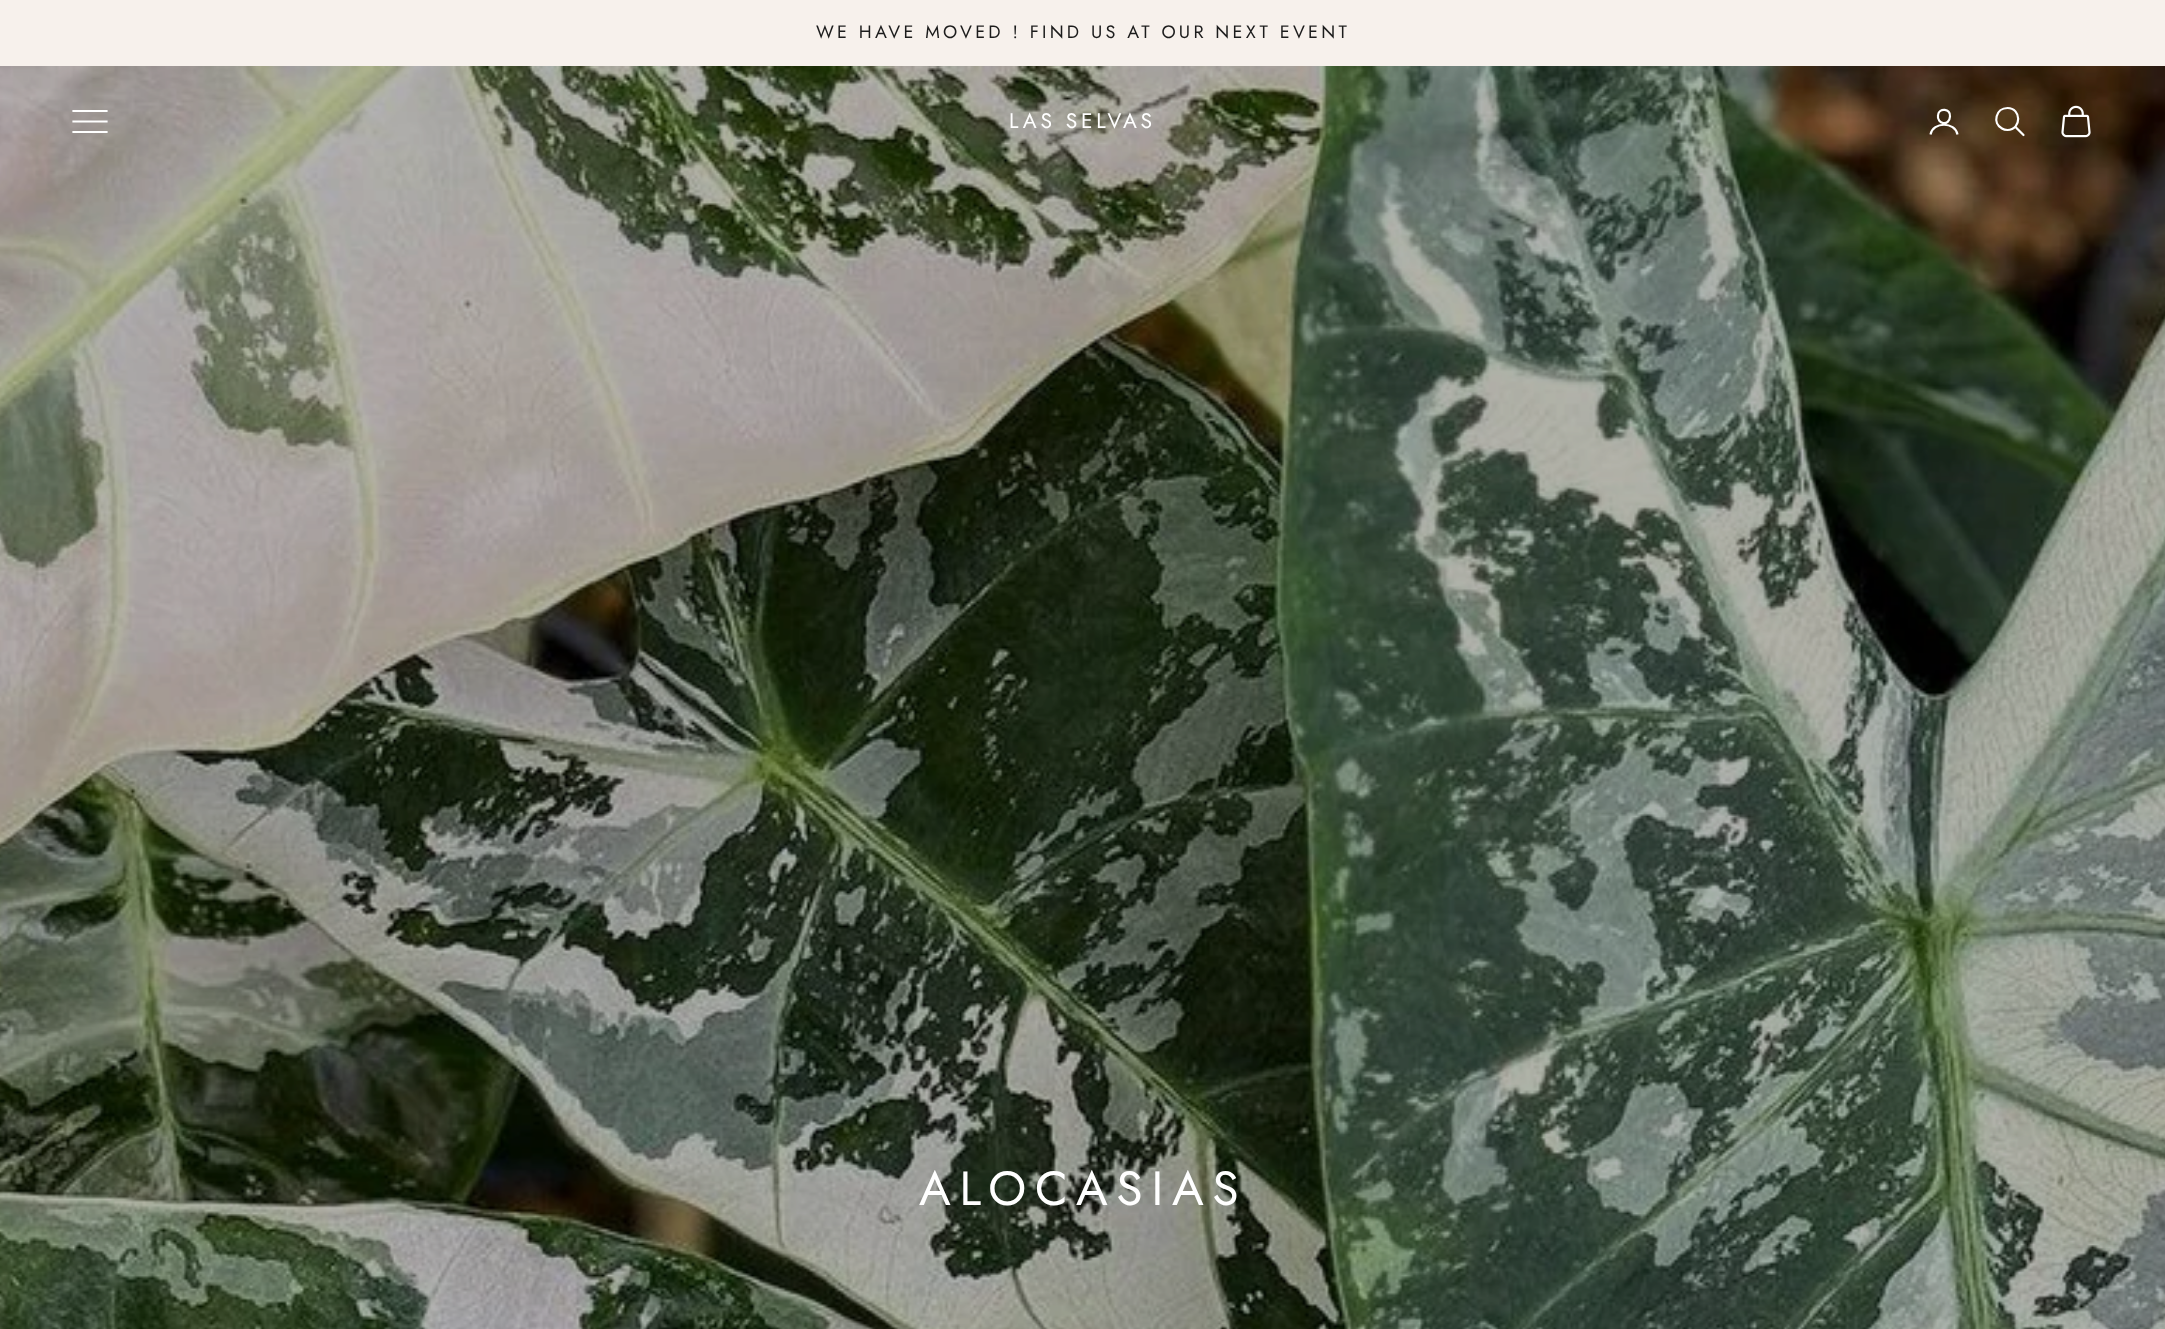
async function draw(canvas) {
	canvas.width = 2165;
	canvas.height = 1329;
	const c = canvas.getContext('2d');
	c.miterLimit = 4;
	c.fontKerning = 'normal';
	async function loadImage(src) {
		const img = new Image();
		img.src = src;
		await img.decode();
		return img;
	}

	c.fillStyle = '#f7f1ec';
	c.fillRect(0, 0, 2165, 1329);
	c.letterSpacing = '3.25px';
	c.font = '18px Jost';
	c.fillStyle = '#1c1c1c';
	c.fillText('WE HAVE MOVED ! FIND US AT OUR NEXT EVENT', 816, 38);
	c.drawImage(await loadImage('img2.png'), 0, 66, 2165, 1263);
	c.beginPath();
	c.moveTo(73.5, 132);
	c.lineTo(106.5, 132);
	c.moveTo(73.5, 121.5);
	c.lineTo(106.5, 121.5);
	c.moveTo(73.5, 111);
	c.lineTo(106.5, 111);
	c.strokeStyle = '#fff';
	c.lineWidth = 2.2;
	c.lineCap = 'square';
	c.stroke();
	c.letterSpacing = '3.75px';
	c.font = '21px Jost';
	c.fillStyle = '#fff';
	c.fillText('LAS SELVAS', 1009, 128);
	c.beginPath();
	c.moveTo(1950, 116.5);
	c.bezierCurveTo(1949.5, 126.5, 1936.5, 124.5, 1938, 115);
	c.bezierCurveTo(1939, 107.5, 1951, 108.5, 1950, 116.5);
	c.closePath();
	c.lineCap = 'round';
	c.lineJoin = 'round';
	c.stroke();
	c.beginPath();
	c.moveTo(1930.5, 134.5);
	c.bezierCurveTo(1933, 121.5, 1955, 121.5, 1957.5, 134.5);
	c.lineCap = 'butt';
	c.lineJoin = 'miter';
	c.stroke();
	c.beginPath();
	c.moveTo(2007.5, 108);
	c.bezierCurveTo(1996, 108, 1992, 123, 2002, 128.5);
	c.bezierCurveTo(2003.5, 129.5, 2005.5, 130, 2007.5, 130);
	c.bezierCurveTo(2022, 129.5, 2021.5, 108, 2007.5, 108);
	c.closePath();
	c.stroke();
	c.beginPath();
	c.moveTo(2016, 127.5);
	c.lineTo(2023.5, 135);
	c.lineCap = 'round';
	c.stroke();
	c.drawImage(await loadImage('img1.png'), 2061, 105, 30, 33);
	c.letterSpacing = '8.75px';
	c.font = '48px Jost';
	c.fillText('ALOCASIAS', 919, 1205);
}

draw(document.querySelector('canvas'));
